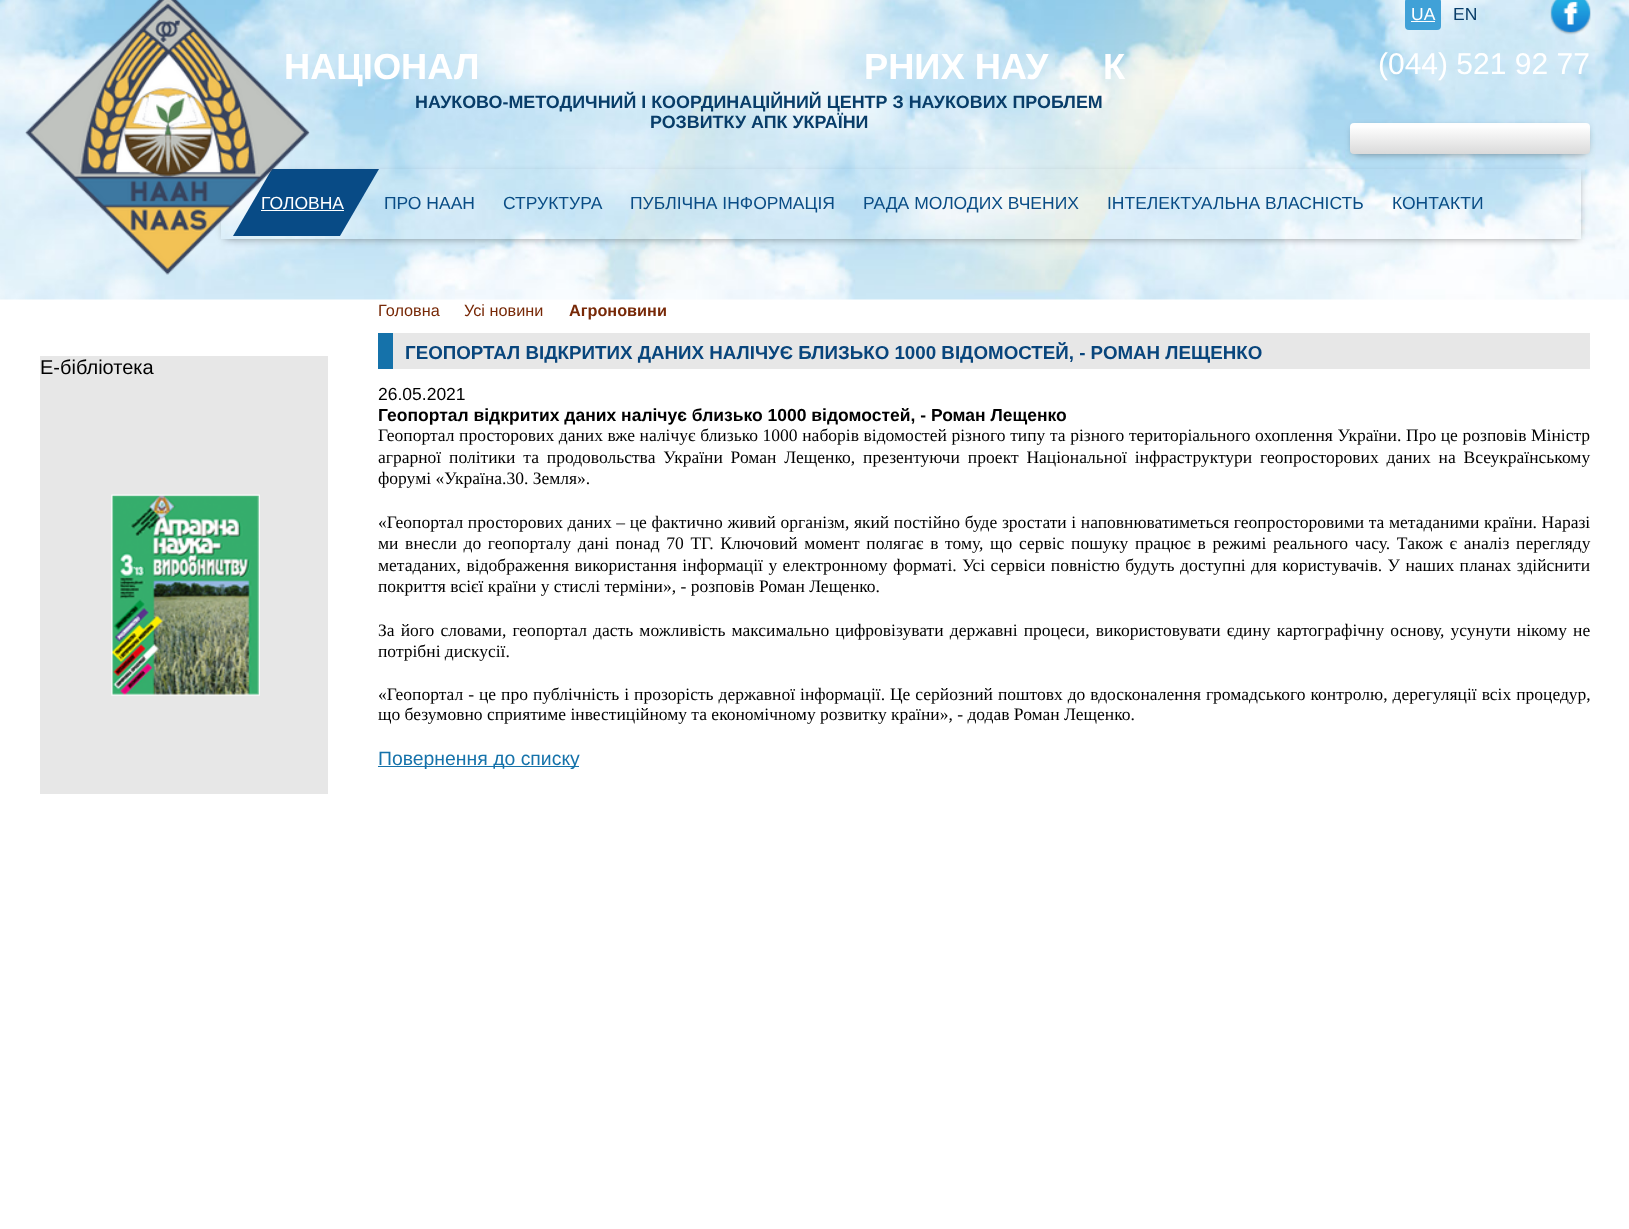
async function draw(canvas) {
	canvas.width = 1629;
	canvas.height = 1229;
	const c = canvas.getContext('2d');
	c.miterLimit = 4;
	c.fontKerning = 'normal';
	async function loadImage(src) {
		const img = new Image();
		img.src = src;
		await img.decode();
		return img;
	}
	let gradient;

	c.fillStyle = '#fff';
	c.fillRect(0, 0, 1629, 1229);
	c.drawImage(await loadImage('img1.png'), 0, 0, 1629, 300);
	c.font = 'bold 36.25px Liberation Sans';
	c.fillText('НАЦІОНАЛ', 284, 79);
	c.save();
	c.beginPath();
	c.moveTo(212, 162);
	c.lineTo(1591, 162);
	c.lineTo(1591, 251);
	c.lineTo(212, 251);
	c.closePath();
	c.moveTo(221, 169);
	c.lineTo(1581, 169);
	c.lineTo(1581, 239);
	c.lineTo(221, 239);
	c.closePath();
	c.clip('evenodd');
	c.fillStyle = '#00000080';
	c.filter = 'blur(4px)';
	c.beginPath();
	c.rect(225, 175, 1353, 63);
	c.fill();
	c.filter = 'none';
	c.restore();
	c.fillStyle = '#084b86';
	c.beginPath();
	c.moveTo(272, 169);
	c.lineTo(379, 169);
	c.lineTo(340, 236);
	c.lineTo(233, 236);
	c.closePath();
	c.fill();
	c.font = '17.5px Liberation Sans';
	c.fillStyle = '#fff';
	c.fillText('ГОЛОВНА', 261, 209);
	c.fillRect(261, 210, 83, 1);
	c.drawImage(await loadImage('img2.png'), 25, 0, 285, 275);
	c.fillStyle = '#40a1d7';
	c.beginPath();
	c.roundRect(1405, -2, 36, 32, 4);
	c.fill();
	c.fillStyle = '#fff';
	c.fillText('UA', 1411, 20);
	c.fillRect(1411, 21, 24, 1);
	c.fillStyle = '#083d69';
	c.fillText('EN', 1453, 20);
	c.drawImage(await loadImage('img3.png'), 1550, 0, 41, 35);
	c.font = 'bold 36.25px Liberation Sans';
	c.fillStyle = '#fff';
	c.fillText('РНИХ НАУ', 864, 79);
	c.fillText('К', 1103, 79);
	c.font = 'bold 17.9px Liberation Sans';
	c.fillStyle = '#083d69';
	c.fillText('НАУКОВО-МЕТОДИЧНИЙ І КООРДИНАЦІЙНИЙ ЦЕНТР З НАУКОВИХ ПРОБЛЕМ', 415, 108);
	c.fillText('РОЗВИТКУ АПК УКРАЇНИ', 650, 128);
	c.font = '30px Liberation Sans';
	c.fillStyle = '#fff';
	c.fillText('(044) 521 92 77', 1378, 74);
	c.fillStyle = '#00000080';
	c.filter = 'blur(4px)';
	c.beginPath();
	c.rect(1354, 129, 232, 24);
	c.fill();
	c.filter = 'none';
	gradient = c.createLinearGradient(1470, 122, 1470, 154);
	gradient.addColorStop(0.14, '#fefefe');
	gradient.addColorStop(1, '#dadada');
	c.fillStyle = gradient;
	c.beginPath();
	c.roundRect(1350, 123, 240, 31, 4);
	c.fill();
	c.font = '17.5px Liberation Sans';
	c.fillStyle = '#094c85';
	for (const [text, x, y] of [
		['ПРО НААН', 384, 209],
		['СТРУКТУРА', 503, 209],
		['ПУБЛІЧНА ІНФОРМАЦІЯ', 630, 209],
		['РАДА МОЛОДИХ ВЧЕНИХ', 863, 209],
		['ІНТЕЛЕКТУАЛЬНА ВЛАСНІСТЬ', 1107, 209],
		['КОНТАКТИ', 1392, 209],
	]) {
		c.fillText(text, x, y);
	}
	c.fillStyle = '#e7e7e7';
	c.fillRect(40, 356, 288, 438);
	c.font = '20px Liberation Sans';
	c.fillStyle = '#000';
	c.fillText('E-бібліотека', 40, 374);
	c.drawImage(await loadImage('img4.png'), 111, 494, 149, 202);
	c.font = '16.25px Liberation Sans';
	c.fillStyle = '#772806';
	c.fillText('Головна', 378, 316);
	c.fillText('Усі новини', 464, 316);
	c.font = 'bold 16.25px Liberation Sans';
	c.fillText('Агроновини', 569, 316);
	c.fillStyle = '#e7e7e7';
	c.fillRect(393, 333, 1197, 36);
	c.fillStyle = '#1572aa';
	c.fillRect(378, 333, 15, 36);
	c.font = 'bold 18.75px Liberation Sans';
	c.fillStyle = '#08457c';
	c.fillText('ГЕОПОРТАЛ ВІДКРИТИХ ДАНИХ НАЛІЧУЄ БЛИЗЬКО 1000 ВІДОМОСТЕЙ, - РОМАН ЛЕЩЕНКО', 405, 359);
	c.font = '17.5px Liberation Sans';
	c.fillStyle = '#000';
	c.fillText('26.05.2021', 378, 400);
	c.font = 'bold 17.5px Liberation Sans';
	c.fillText('Геопортал відкритих даних налічує близько 1000 відомостей, - Роман Лещенко', 378, 421);
	c.wordSpacing = '0.25px';
	c.font = '17.5px Liberation Serif';
	c.fillText('Геопортал просторових даних вже налічує близько 1000 наборів відомостей різного типу та різного територіального охоплення України. Про це розповів Міністр', 378, 441);
	c.wordSpacing = '3.5px';
	c.fillText('аграрної політики та продовольства України Роман Лещенко, презентуючи проект Національної інфраструктури геопросторових даних на Всеукраїнському', 378, 463);
	c.wordSpacing = '0px';
	c.fillText('форумі «Україна.30. Земля».', 378, 484);
	c.wordSpacing = '0.25px';
	c.fillText('«Геопортал просторових даних – це фактично живий організм, який постійно буде зростати і наповнюватиметься геопросторовими та метаданими країни. Наразі', 378, 528);
	c.wordSpacing = '2.3px';
	c.fillText('ми внесли до геопорталу дані понад 70 ТГ. Ключовий момент полягає в тому, що сервіс пошуку працює в режимі реального часу. Також є аналіз перегляду', 378, 549);
	c.wordSpacing = '1.1px';
	c.fillText('метаданих, відображення використання інформації у електронному форматі. Усі сервіси повністю будуть доступні для користувачів. У наших планах здійснити', 378, 571);
	c.wordSpacing = '0px';
	c.fillText('покриття всієї країни у стислі терміни», - розповів Роман Лещенко.', 378, 592);
	c.wordSpacing = '1.75px';
	c.fillText('За його словами, геопортал дасть можливість максимально цифровізувати державні процеси, використовувати єдину картографічну основу, усунути нікому не', 378, 636);
	c.wordSpacing = '0px';
	c.fillText('потрібні дискусії.', 378, 657);
	c.wordSpacing = '0.6px';
	c.fillText('«Геопортал - це про публічність і прозорість державної інформації. Це серйозний поштовх до вдосконалення громадського контролю, дерегуляції всіх процедур,', 378, 700);
	c.wordSpacing = '0px';
	c.fillText('що безумовно сприятиме інвестиційному та економічному розвитку країни», - додав Роман Лещенко.', 378, 720);
	c.fillStyle = '#1572aa';
	c.fillRect(378, 766, 201, 1);
	c.font = '19.4px Liberation Sans';
	c.fillText('Повернення до списку', 378, 765);
}

draw(document.querySelector('canvas'));
